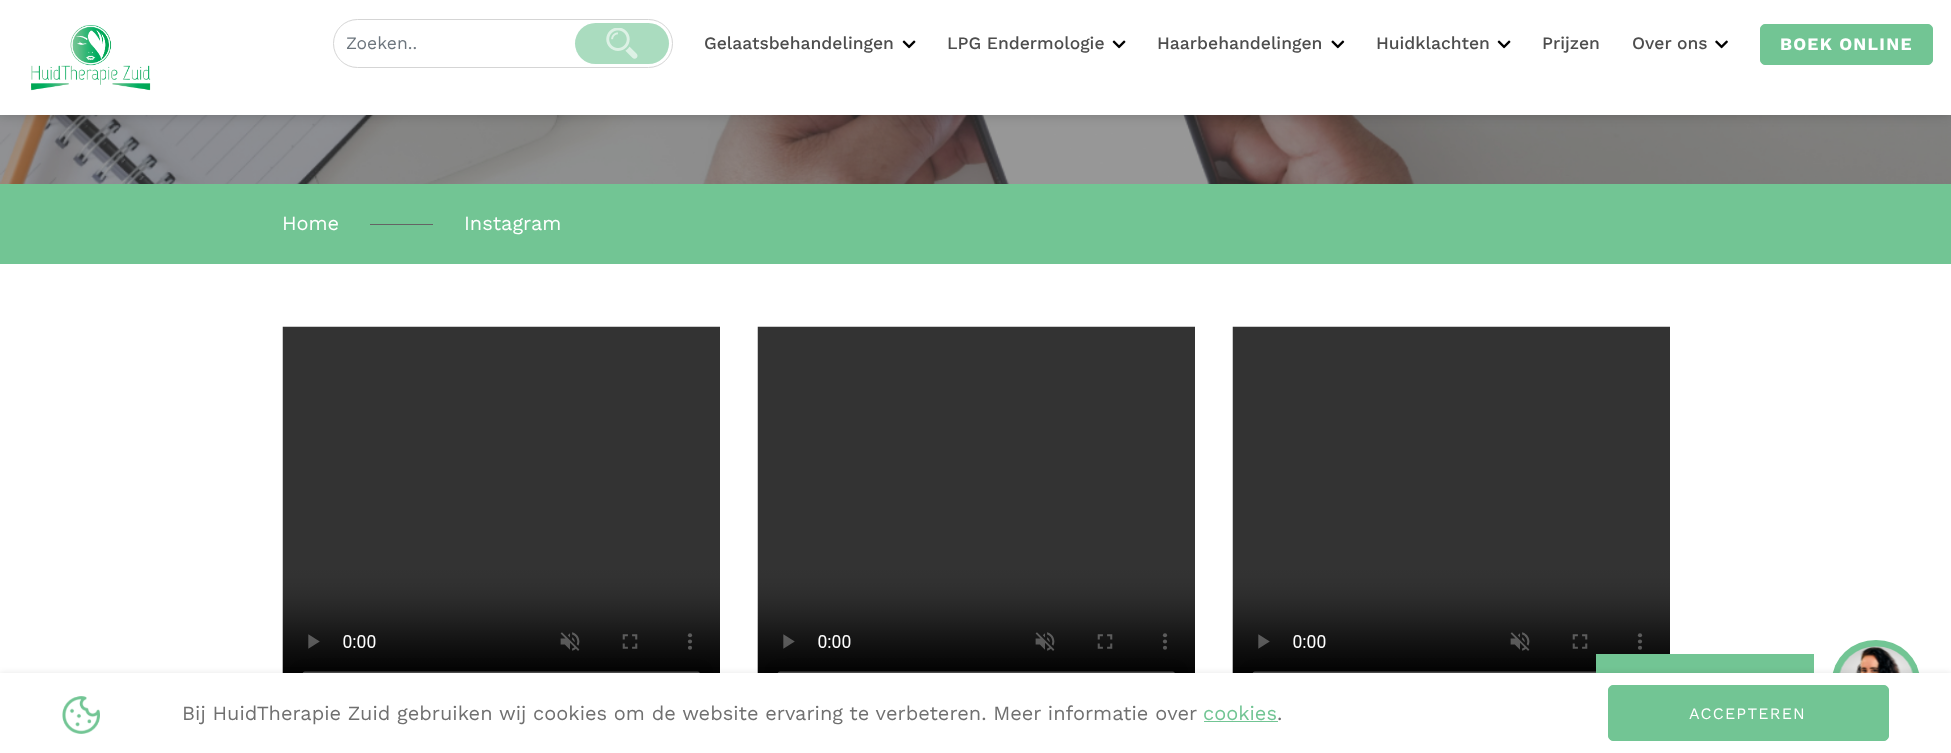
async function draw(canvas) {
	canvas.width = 1951;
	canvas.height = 753;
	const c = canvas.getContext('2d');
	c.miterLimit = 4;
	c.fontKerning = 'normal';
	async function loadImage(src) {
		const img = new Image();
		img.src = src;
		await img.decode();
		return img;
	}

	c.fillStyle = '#fff';
	c.fillRect(0, 0, 1951, 753);
	c.drawImage(await loadImage('img6.png'), 0, 115, 1951, 69);
	c.fillStyle = '#00000033';
	c.filter = 'blur(6px)';
	c.beginPath();
	c.rect(0, 0, 1951, 115);
	c.fill();
	c.filter = 'none';
	c.fillStyle = '#fff';
	c.fillRect(0, 0, 1951, 115);
	c.drawImage(await loadImage('img1.png'), 31, 25, 120, 66);
	c.beginPath();
	c.roundRect(333.5, 19.5, 339, 48, 24);
	c.strokeStyle = '#d5d5d5';
	c.stroke();
	c.font = '17.5px Work Sans';
	c.fillStyle = '#6c757d';
	c.fillText('Zoeken..', 346, 49);
	c.fillStyle = '#aadcbf';
	c.beginPath();
	c.roundRect(575, 23, 94, 41, 20.5);
	c.fill();
	c.drawImage(await loadImage('img2.png'), 606, 28, 32, 31);
	c.font = '500 17.5px Work Sans';
	c.fillStyle = '#4d4d4d';
	c.fillText('Gelaatsbehandelingen', 704, 49);
	c.drawImage(await loadImage('img3.png'), 902, 40, 14, 9);
	c.fillText('LPG Endermologie', 947, 49);
	c.drawImage(await loadImage('img3.png'), 1112, 40, 14, 9);
	c.fillText('Haarbehandelingen', 1157, 49);
	c.drawImage(await loadImage('img4.png'), 1331, 40, 14, 9);
	c.fillText('Huidklachten', 1376, 49);
	c.drawImage(await loadImage('img3.png'), 1497, 40, 14, 9);
	c.fillText('Prijzen', 1542, 49);
	c.fillText('Over ons', 1632, 49);
	c.drawImage(await loadImage('img5.png'), 1715, 40, 13, 9);
	c.fillStyle = '#72c594';
	c.beginPath();
	c.roundRect(1760.5, 24.5, 172, 40, 4.5);
	c.fill();
	c.strokeStyle = '#72c594';
	c.stroke();
	c.letterSpacing = '1.25px';
	c.font = 'bold 17.5px Work Sans';
	c.fillStyle = '#fff';
	c.fillText('BOEK ONLINE', 1780, 50);
	c.fillStyle = '#72c594';
	c.fillRect(0, 184, 1951, 80);
	c.letterSpacing = '0px';
	c.font = '20px Work Sans';
	c.fillStyle = '#fff';
	c.fillText('Home', 282, 230);
	c.fillStyle = '#646464';
	c.fillRect(370, 224, 63, 1);
	c.fillStyle = '#fff';
	c.fillText('Instagram', 464, 230);
	c.drawImage(await loadImage('img7.png'), 282, 326, 438, 347);
	c.drawImage(await loadImage('img8.png'), 757, 326, 438, 347);
	c.drawImage(await loadImage('img9.png'), 1232, 326, 438, 347);
	c.fillStyle = '#72c594';
	c.fillRect(1596, 654, 218, 19);
	c.beginPath();
	c.ellipse(1876, 681, 44, 41, 0, 0, 2 * Math.PI);
	c.fill();
	c.drawImage(await loadImage('img10.png'), 1839, 646, 74, 27);
	c.fillStyle = '#0000001a';
	c.filter = 'blur(3px)';
	c.beginPath();
	c.rect(0, 673, 1951, 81);
	c.fill();
	c.filter = 'none';
	c.fillStyle = '#fff';
	c.fillRect(0, 673, 1951, 80);
	c.drawImage(await loadImage('img11.png'), 62, 696, 38, 38);
	c.fillStyle = '#707070';
	c.fillText('Bij HuidTherapie Zuid gebruiken wij cookies om de website ervaring te verbeteren. Meer informatie over', 182, 720);
	c.fillStyle = '#72c594';
	c.fillText('cookies', 1203, 720);
	c.fillRect(1204, 721, 74, 1);
	c.fillStyle = '#707070';
	c.fillText('.', 1277, 720);
	c.fillStyle = '#72c594';
	c.beginPath();
	c.roundRect(1608.5, 685.5, 280, 55, 4.5);
	c.fill();
	c.stroke();
	c.letterSpacing = '1.25px';
	c.font = '16px Work Sans';
	c.fillStyle = '#fff';
	c.fillText('ACCEPTEREN', 1689, 719);
}

draw(document.querySelector('canvas'));
